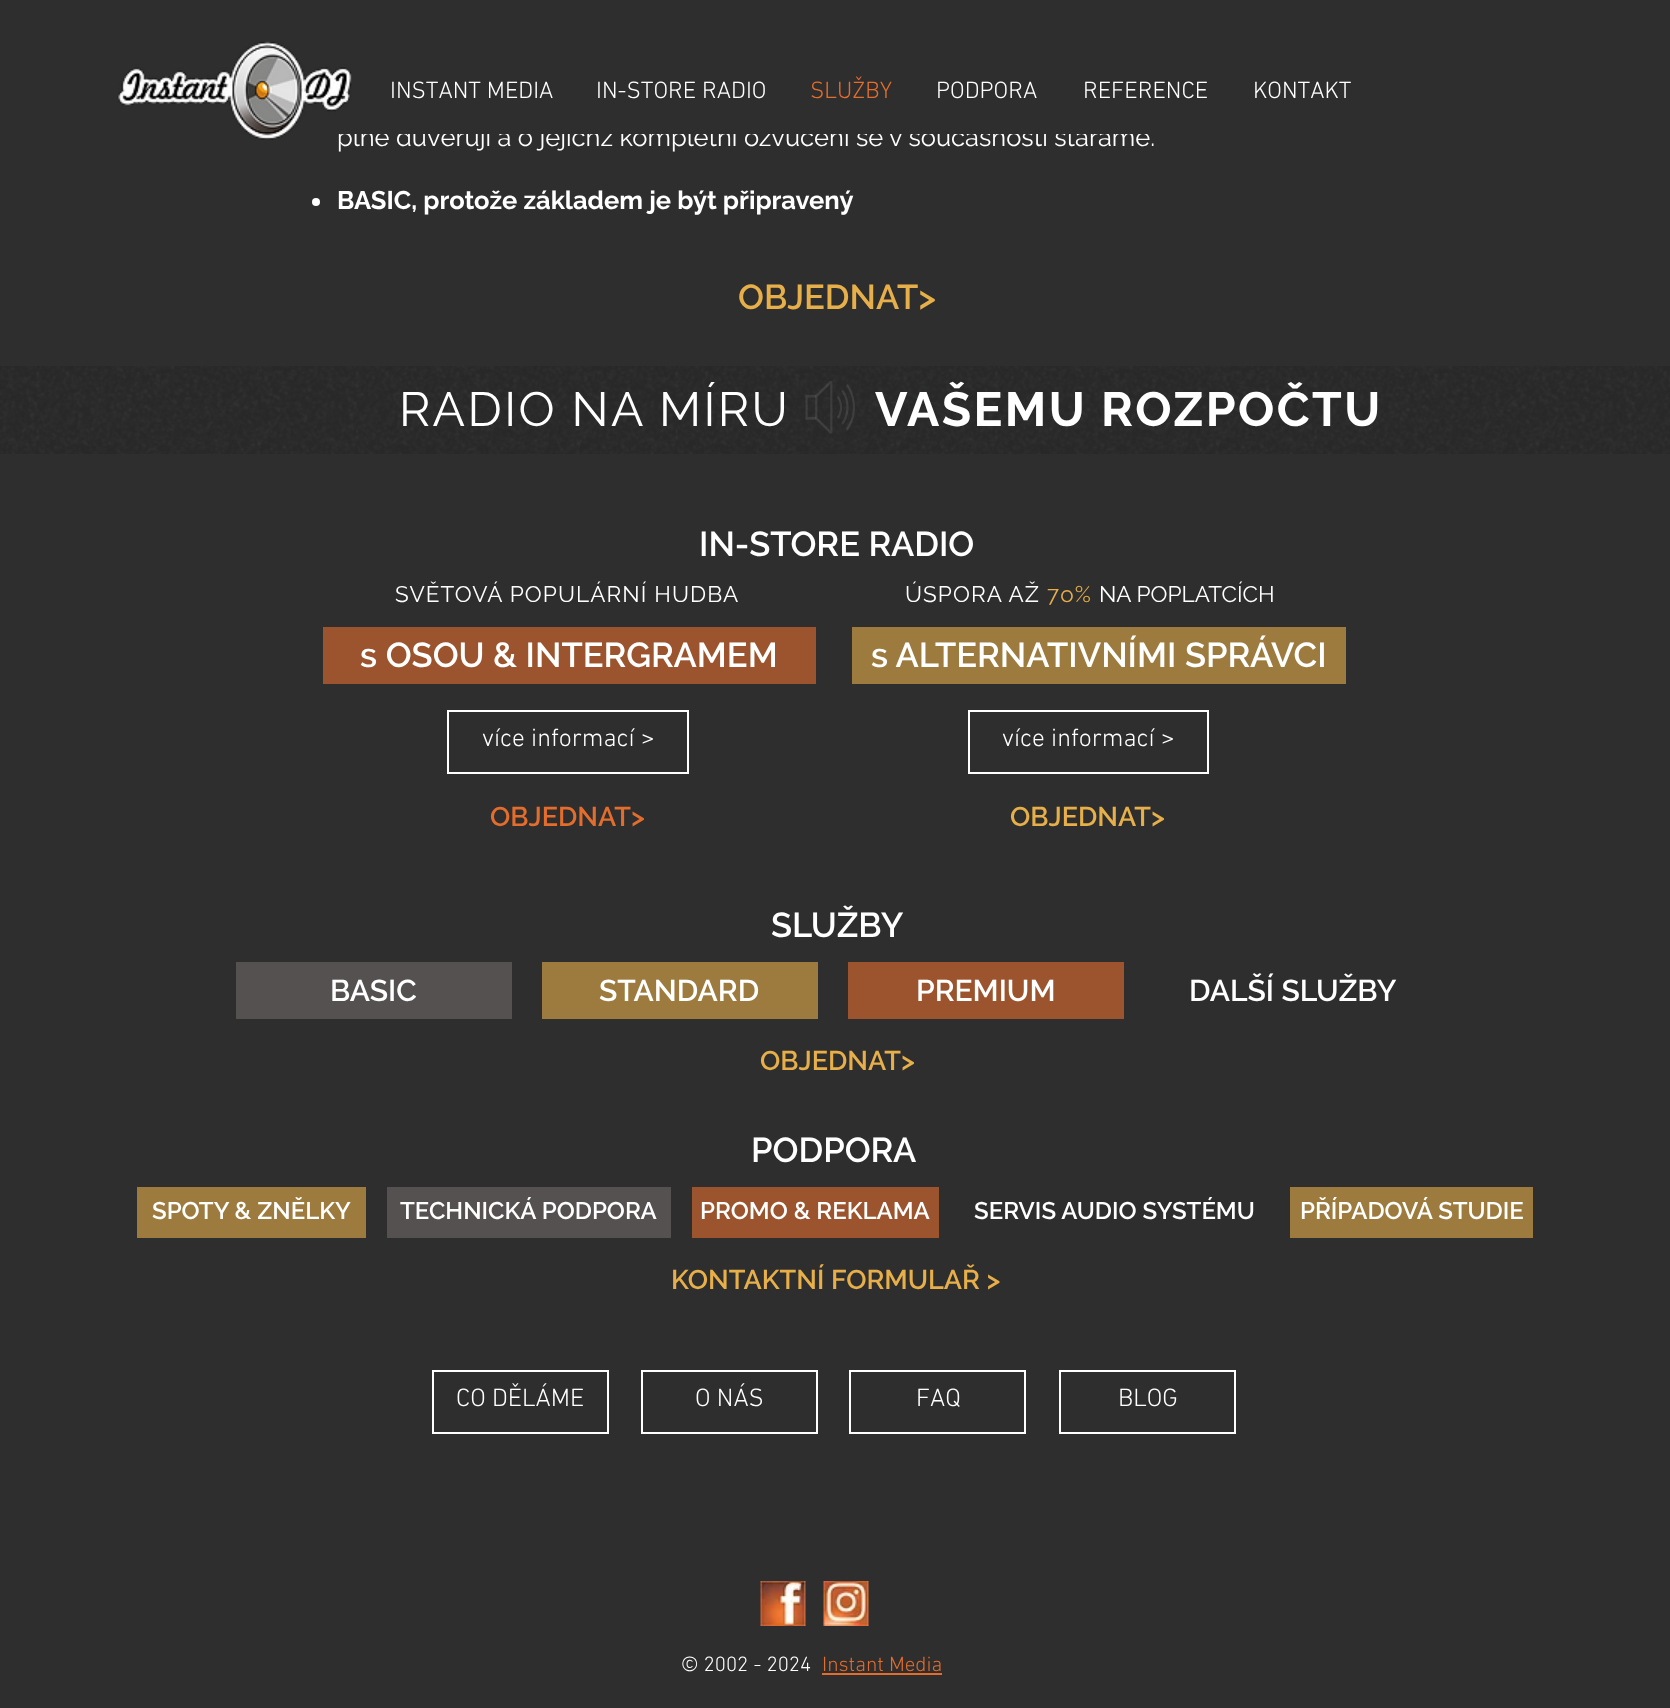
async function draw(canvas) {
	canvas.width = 1670;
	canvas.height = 1708;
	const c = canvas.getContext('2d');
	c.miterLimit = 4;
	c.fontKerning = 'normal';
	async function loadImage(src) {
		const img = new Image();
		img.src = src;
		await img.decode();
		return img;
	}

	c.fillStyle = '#2f2e2e';
	c.fillRect(0, 0, 1670, 1708);
	c.font = '25.5px Raleway';
	c.fillStyle = '#fff';
	c.fillText('plně důvěřují a o jejichž kompletní ozvučení se v současnosti staráme.', 337, 146);
	c.fillStyle = '#2f2e2e';
	c.fillRect(338, 126, 809, 8);
	c.drawImage(await loadImage('img1.png'), 117, 41, 235, 99);
	c.font = '300 24px "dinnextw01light"';
	c.fillStyle = '#fff';
	c.fillText('INSTANT MEDIA', 390, 98);
	c.fillText('IN-STORE RADIO', 596, 98);
	c.fillStyle = '#e36d2d';
	c.fillText('SLUŽBY', 810, 98);
	c.fillStyle = '#fff';
	for (const [text, x, y] of [
		['PODPORA', 936, 98],
		['REFERENCE', 1083, 98],
		['KONTAKT', 1253, 98],
	]) {
		c.fillText(text, x, y);
	}
	c.beginPath();
	c.arc(316, 202, 4, 0, 2 * Math.PI);
	c.fill();
	c.font = 'bold 25.5px Raleway';
	c.fillText('BASIC, protože základem je být připravený', 337, 209);
	c.font = '600 34.5px Raleway';
	c.fillStyle = '#e6af49';
	c.fillText('OBJEDNAT>', 738, 309);
	c.drawImage(await loadImage('img2.png'), 0, 366, 1670, 88);
	c.letterSpacing = '2.4px';
	c.font = '48px Raleway';
	c.fillStyle = '#fff';
	c.fillText('RADIO NA MÍRU', 399, 426);
	c.drawImage(await loadImage('img3.png'), 805, 381, 50, 53);
	c.font = 'bold 48px Raleway';
	c.fillText('VAŠEMU ROZPOČTU', 875, 426);
	c.letterSpacing = '0px';
	c.font = '600 34.5px Raleway';
	c.fillText('IN-STORE RADIO', 699, 556);
	c.letterSpacing = '1.1px';
	c.font = '22.5px Raleway';
	c.fillText('SVĚTOVÁ POPULÁRNÍ HUDBA', 395, 602);
	c.fillText('ÚSPORA AŽ', 905, 602);
	c.fillStyle = '#e6af49';
	c.fillText('7o%', 1047, 602);
	c.letterSpacing = '0px';
	c.fillStyle = '#fff';
	c.fillText('NA POPLATCÍCH', 1099, 602);
	c.fillStyle = '#9b542d';
	c.fillRect(323, 627, 493, 57);
	c.font = '600 34.5px Raleway';
	c.fillStyle = '#fff';
	c.fillText('s OSOU & INTERGRAMEM', 360, 667);
	c.fillStyle = '#9d7b3e';
	c.fillRect(852, 627, 494, 57);
	c.fillStyle = '#fff';
	c.fillText('s ALTERNATIVNÍMI SPRÁVCI', 871, 667);
	c.strokeStyle = '#fff';
	c.lineWidth = 2;
	c.strokeRect(448, 711, 240, 62);
	c.font = '300 25.5px "dinnextw01light"';
	c.fillText('více informací >', 482, 746);
	c.strokeRect(969, 711, 239, 62);
	c.fillText('více informací >', 1002, 746);
	c.font = '600 27px Raleway';
	c.fillStyle = '#e36d2d';
	c.fillText('OBJEDNAT>', 490, 826);
	c.fillStyle = '#e6af49';
	c.fillText('OBJEDNAT>', 1010, 826);
	c.font = '600 34.5px Raleway';
	c.fillStyle = '#fff';
	c.fillText('SLUŽBY', 771, 937);
	c.fillStyle = '#555151';
	c.fillRect(236, 962, 276, 57);
	c.font = '600 30px Raleway';
	c.fillStyle = '#fff';
	c.fillText('BASIC', 330, 1001);
	c.fillStyle = '#9d7b3e';
	c.fillRect(542, 962, 276, 57);
	c.fillStyle = '#fff';
	c.fillText('STANDARD', 599, 1001);
	c.fillStyle = '#9b542d';
	c.fillRect(848, 962, 276, 57);
	c.fillStyle = '#fff';
	c.fillText('PREMIUM', 916, 1001);
	c.fillText('DALŠÍ SLUŽBY', 1189, 1001);
	c.font = '600 27px Raleway';
	c.fillStyle = '#e6af49';
	c.fillText('OBJEDNAT>', 760, 1070);
	c.font = '600 34.5px Raleway';
	c.fillStyle = '#fff';
	c.fillText('PODPORA', 751, 1162);
	c.fillStyle = '#9d7b3e';
	c.fillRect(137, 1187, 229, 51);
	c.font = '600 24px Raleway';
	c.fillStyle = '#fff';
	c.fillText('SPOTY & ZNĚLKY', 152, 1219);
	c.fillStyle = '#555151';
	c.fillRect(387, 1187, 284, 51);
	c.fillStyle = '#fff';
	c.fillText('TECHNICKÁ PODPORA', 400, 1219);
	c.fillStyle = '#9b542d';
	c.fillRect(692, 1187, 247, 51);
	c.fillStyle = '#fff';
	c.fillText('PROMO & REKLAMA', 700, 1219);
	c.fillText('SERVIS AUDIO SYSTÉMU', 974, 1219);
	c.fillStyle = '#9d7b3e';
	c.fillRect(1290, 1187, 243, 51);
	c.fillStyle = '#fff';
	c.fillText('PŘÍPADOVÁ STUDIE', 1300, 1219);
	c.font = '600 27px Raleway';
	c.fillStyle = '#e6af49';
	c.fillText('KONTAKTNÍ FORMULAŘ >', 671, 1289);
	c.strokeRect(433, 1371, 175, 62);
	c.font = '300 25.5px "dinnextw01light"';
	c.fillStyle = '#fff';
	c.fillText('CO DĚLÁME', 456, 1406);
	c.strokeRect(642, 1371, 175, 62);
	c.fillText('O NÁS', 695, 1406);
	c.strokeRect(850, 1371, 175, 62);
	c.fillText('FAQ', 916, 1406);
	c.strokeRect(1060, 1371, 175, 62);
	c.fillText('BLOG', 1118, 1406);
	c.drawImage(await loadImage('img4.png'), 760, 1581, 46, 45);
	c.drawImage(await loadImage('img5.png'), 823, 1581, 46, 45);
	c.font = '300 21px "dinnextw01light"';
	c.fillText('© 2002 - 2024', 681, 1671);
	c.fillStyle = '#e36d2d';
	c.fillText('Instant Media', 822, 1671);
	c.fillRect(822, 1673, 120, 2);
}

draw(document.querySelector('canvas'));
